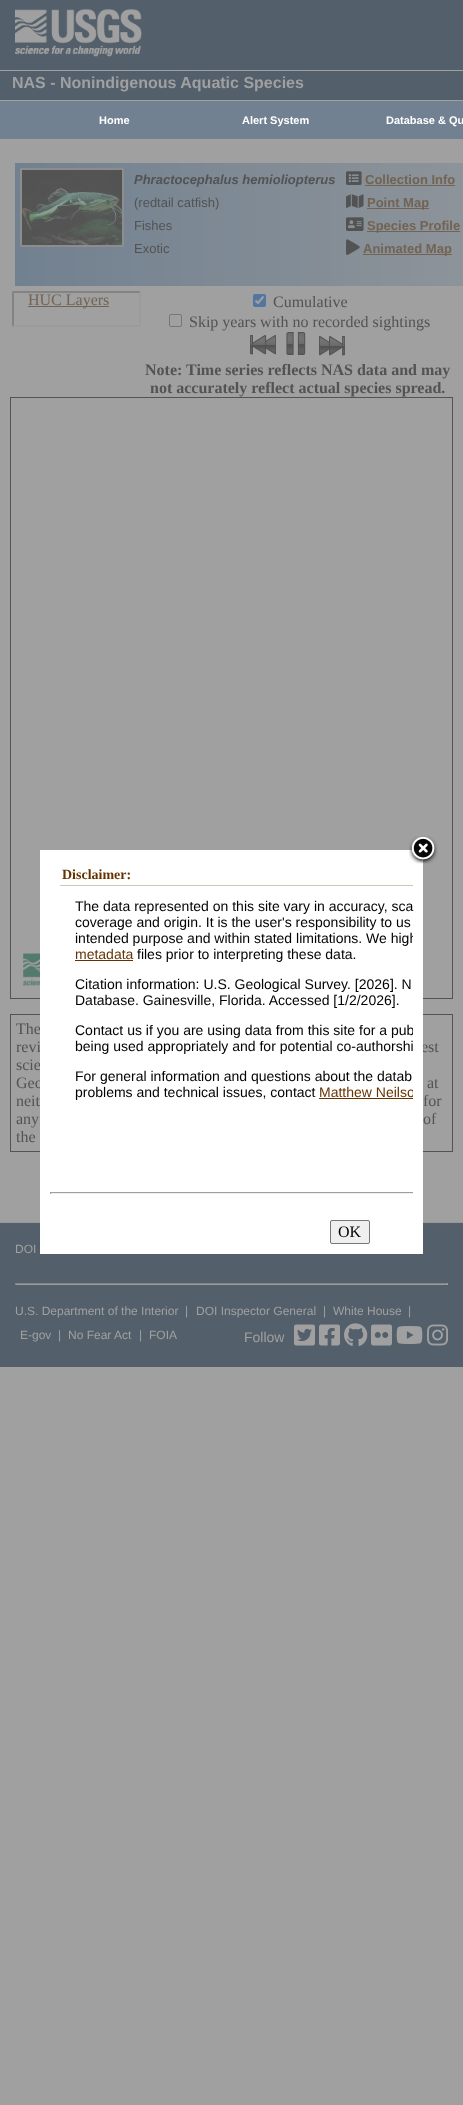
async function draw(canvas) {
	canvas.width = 463;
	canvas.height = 2105;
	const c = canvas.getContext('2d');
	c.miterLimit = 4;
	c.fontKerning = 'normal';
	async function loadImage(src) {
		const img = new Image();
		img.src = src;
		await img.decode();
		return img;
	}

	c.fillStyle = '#a0a0a0';
	c.fillRect(0, 0, 463, 2105);
	c.fillStyle = '#535f6a';
	c.fillRect(0, 0, 463, 70);
	c.drawImage(await loadImage('img1.png'), 15, 8, 127, 49);
	c.fillRect(0, 71, 463, 29);
	c.font = 'bold 16px Liberation Sans';
	c.fillStyle = '#a0a0a0';
	c.fillText('NAS - Nonindigenous Aquatic Species', 12, 88);
	c.fillStyle = '#728191';
	c.fillRect(0, 101, 463, 38);
	c.font = 'bold 11px Liberation Sans';
	c.fillStyle = '#fff';
	for (const [text, x, y] of [
		['Home', 99, 124],
		['Alert System', 242, 124],
		['Database & Qu', 386, 124],
	]) {
		c.fillText(text, x, y);
	}
	c.drawImage(await loadImage('img2.png'), 15, 163, 448, 123);
	c.strokeStyle = '#8d8d8d';
	c.lineWidth = 2;
	c.strokeRect(21, 169, 102, 77);
	c.drawImage(await loadImage('img3.png'), 22, 170, 100, 75);
	c.font = 'italic bold 13px Liberation Sans';
	c.fillStyle = '#535353';
	c.fillText('Phractocephalus hemioliopterus', 134, 184);
	c.font = '13px Liberation Sans';
	for (const [text, x, y] of [
		['(redtail catfish)', 134, 207],
		['Fishes', 134, 230],
		['Exotic', 134, 253],
	]) {
		c.fillText(text, x, y);
	}
	c.drawImage(await loadImage('img4.png'), 346, 171, 16, 14);
	c.font = 'bold 13px Liberation Sans';
	c.fillStyle = '#726353';
	c.fillText('Collection Info', 365, 184);
	c.fillRect(365, 185, 90, 1);
	c.drawImage(await loadImage('img5.png'), 346, 194, 18, 14);
	c.fillRect(367, 208, 62, 1);
	c.fillText('Point Map', 367, 207);
	c.drawImage(await loadImage('img6.png'), 346, 217, 18, 14);
	c.fillRect(367, 231, 93, 1);
	c.fillText('Species Profile', 367, 230);
	c.drawImage(await loadImage('img7.png'), 346, 239, 14, 16);
	c.fillRect(363, 254, 89, 1);
	c.fillText('Animated Map', 363, 253);
	c.fillStyle = '#838383';
	c.beginPath();
	c.moveTo(12, 291);
	c.lineTo(141, 291);
	c.lineTo(139, 293);
	c.lineTo(14, 293);
	c.closePath();
	c.fill();
	c.fillStyle = '#9b9b9b';
	c.beginPath();
	c.moveTo(141, 291);
	c.lineTo(141, 327);
	c.lineTo(139, 325);
	c.lineTo(139, 293);
	c.closePath();
	c.fill();
	c.beginPath();
	c.moveTo(141, 327);
	c.lineTo(12, 327);
	c.lineTo(14, 325);
	c.lineTo(139, 325);
	c.closePath();
	c.fill();
	c.fillStyle = '#838383';
	c.beginPath();
	c.moveTo(12, 327);
	c.lineTo(12, 291);
	c.lineTo(14, 293);
	c.lineTo(14, 325);
	c.closePath();
	c.fill();
	c.fillStyle = '#726353';
	c.fillRect(28, 306, 81, 1);
	c.font = '16px Liberation Serif';
	c.fillText('HUC Layers', 28, 305);
	c.fillStyle = '#5376a0';
	c.beginPath();
	c.roundRect(253, 294, 13, 13, 2);
	c.fill();
	c.beginPath();
	c.moveTo(255.5, 300.5);
	c.lineTo(258, 303);
	c.lineTo(263.5, 296.5);
	c.strokeStyle = '#a0a0a0';
	c.lineWidth = 2.1;
	c.stroke();
	c.fillStyle = '#535353';
	c.fillText('Cumulative', 273, 307);
	c.beginPath();
	c.roundRect(169.5, 314.5, 12, 12, 1.5);
	c.strokeStyle = '#777';
	c.lineWidth = 1;
	c.stroke();
	c.fillText('Skip years with no recorded sightings', 189, 327);
	c.drawImage(await loadImage('img8.png'), 250, 335, 26, 20);
	c.drawImage(await loadImage('img9.png'), 286, 332, 20, 23);
	c.drawImage(await loadImage('img10.png'), 319, 336, 26, 20);
	c.font = 'bold 16px Liberation Serif';
	c.fillText('Note: Time series reflects NAS data and may', 145, 375);
	c.fillText('not accurately reflect actual species spread.', 150, 393);
	c.strokeStyle = '#535353';
	c.strokeRect(10.5, 397.5, 442, 601);
	c.drawImage(await loadImage('img11.png'), 23, 953, 17, 33);
	c.strokeRect(10.5, 1014.5, 442, 137);
	c.font = '16px Liberation Serif';
	for (const [text, x, y] of [
		['The', 16, 1034],
		['revi', 16, 1052],
		['est', 421, 1052],
		['scie', 16, 1070],
		['Geo', 16, 1088],
		['at', 427, 1088],
		['neit', 16, 1106],
		['for', 423, 1106],
		['any', 16, 1124],
		['of', 423, 1124],
		['the', 16, 1142],
	]) {
		c.fillText(text, x, y);
	}
	c.fillStyle = '#535f6a';
	c.fillRect(0, 1223, 463, 144);
	c.fillStyle = '#989898';
	c.fillRect(0, 1222, 463, 1);
	c.font = '12px Liberation Sans';
	c.fillStyle = '#a0a0a0';
	c.fillText('DOI', 15, 1253);
	for (const [x, y, w, h, color] of [
		[15, 1283, 433, 1, '#838383'],
		[447, 1283, 1, 2, '#9b9b9b'],
		[15, 1284, 433, 1, '#9b9b9b'],
		[15, 1283, 1, 2, '#838383'],
	]) {
		c.fillStyle = color;
		c.fillRect(x, y, w, h);
	}
	c.fillStyle = '#a0a0a0';
	for (const [text, x, y] of [
		['U.S. Department of the Interior', 15, 1315],
		['|', 185, 1315],
		['DOI Inspector General', 196, 1315],
		['|', 323, 1315],
		['White House', 333, 1315],
		['|', 408, 1315],
		['E-gov', 20, 1339],
		['|', 58, 1339],
		['No Fear Act', 68, 1339],
		['|', 139, 1339],
		['FOIA', 149, 1339],
	]) {
		c.fillText(text, x, y);
	}
	c.font = '14px Liberation Sans';
	c.fillText('Follow', 244, 1342);
	c.drawImage(await loadImage('img12.png'), 294, 1324, 21, 22);
	c.drawImage(await loadImage('img13.png'), 319, 1324, 21, 22);
	c.drawImage(await loadImage('img14.png'), 344, 1323, 24, 23);
	c.drawImage(await loadImage('img15.png'), 371, 1324, 21, 22);
	c.drawImage(await loadImage('img16.png'), 396, 1326, 27, 18);
	c.drawImage(await loadImage('img17.png'), 427, 1324, 22, 22);
	c.fillStyle = '#fff';
	c.fillRect(40, 850, 383, 404);
	c.drawImage(await loadImage('img18.png'), 409, 836, 29, 28);
	c.fillStyle = '#cdc8b1';
	c.fillRect(60, 885, 353, 1);
	c.font = 'bold 14px Liberation Serif';
	c.fillStyle = '#630';
	c.fillText('Disclaimer:', 62, 879);
	c.font = '14px Liberation Sans';
	c.fillStyle = '#000';
	c.fillText('The data represented on this site vary in accuracy, sca', 75, 911);
	c.fillText('coverage and origin. It is the user\'s responsibility to us', 75, 927);
	c.save();
	c.beginPath();
	c.rect(50, 860, 363, 384);
	c.clip();
	c.fillText('intended purpose and within stated limitations. We high', 75, 943);
	c.restore();
	c.fillStyle = '#630';
	c.fillText('metadata', 75, 959);
	c.fillRect(75, 960, 58, 1);
	c.fillStyle = '#000';
	for (const [text, x, y] of [
		['files prior to interpreting these data.', 137, 959],
		['Citation information: U.S. Geological Survey. [2026]. N', 75, 989],
		['Database. Gainesville, Florida. Accessed [1/2/2026].', 75, 1005],
	]) {
		c.fillText(text, x, y);
	}
	c.save();
	c.beginPath();
	c.rect(50, 860, 363, 384);
	c.clip();
	c.fillText('Contact us if you are using data from this site for a pub', 75, 1035);
	c.restore();
	for (const [text, x, y] of [
		['being used appropriately and for potential co-authorshi', 75, 1051],
		['For general information and questions about the datab', 75, 1081],
		['problems and technical issues, contact', 75, 1097],
	]) {
		c.fillText(text, x, y);
	}
	c.save();
	c.beginPath();
	c.rect(50, 860, 363, 384);
	c.clip();
	c.fillStyle = '#630';
	c.fillText('Matthew Neilso', 319, 1097);
	c.restore();
	for (const [x, y, w, h, color] of [
		[319, 1098, 94, 1, '#630'],
		[50, 1192, 363, 1, '#9f9f9f'],
		[50, 1193, 363, 1, '#eee'],
		[50, 1192, 1, 2, '#9f9f9f'],
	]) {
		c.fillStyle = color;
		c.fillRect(x, y, w, h);
	}
	c.fillStyle = '#efefef';
	c.beginPath();
	c.roundRect(330.5, 1220.5, 39, 23, 1.5);
	c.fill();
	c.strokeStyle = '#767676';
	c.stroke();
	c.font = '16px Liberation Serif';
	c.fillStyle = '#000';
	c.fillText('OK', 338, 1237);
}

draw(document.querySelector('canvas'));
